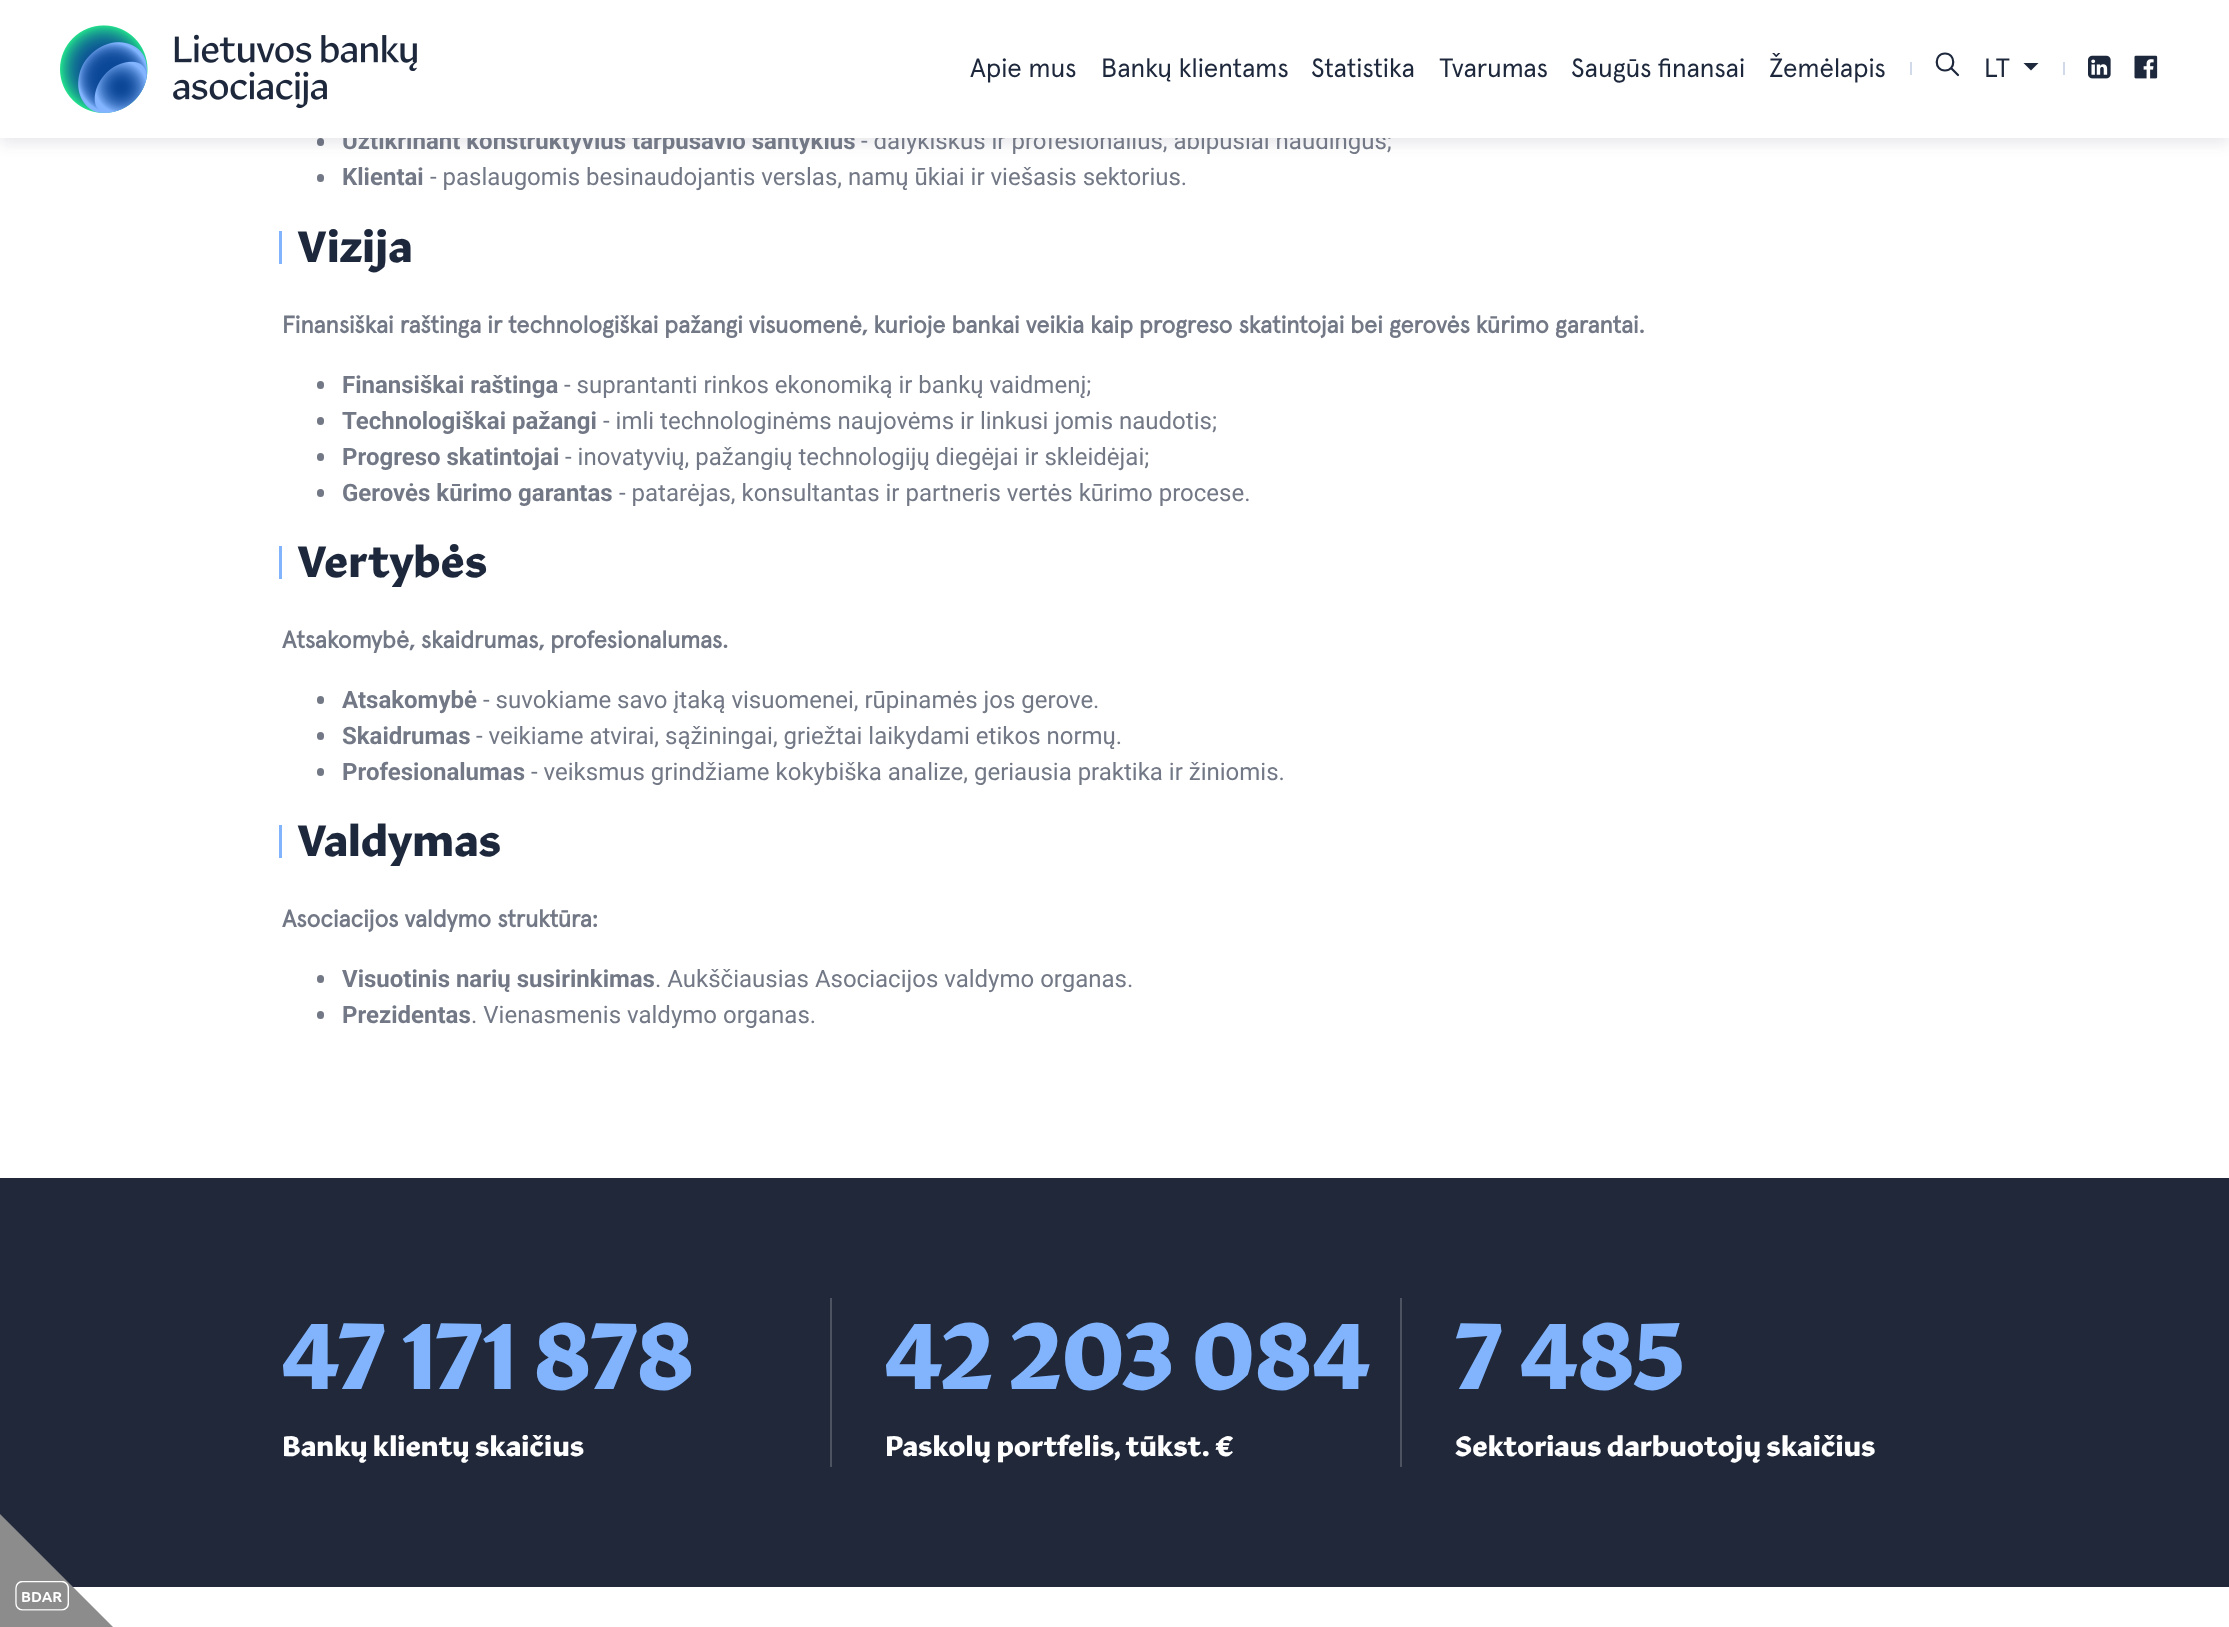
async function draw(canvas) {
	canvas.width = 2229;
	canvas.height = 1627;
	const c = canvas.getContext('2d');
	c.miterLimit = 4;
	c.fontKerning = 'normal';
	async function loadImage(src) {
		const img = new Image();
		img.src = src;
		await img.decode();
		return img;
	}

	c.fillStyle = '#fff';
	c.fillRect(0, 0, 2229, 1627);
	c.fillStyle = '#727885';
	c.beginPath();
	c.roundRect(317, 138, 7, 8, 3.5);
	c.fill();
	c.fillStyle = '#2424511a';
	c.filter = 'blur(7px)';
	c.beginPath();
	c.rect(0, 6, 2229, 138);
	c.fill();
	c.filter = 'none';
	c.font = 'bold 24px Roboto';
	c.fillStyle = '#727885';
	c.fillText('Užtikrinant konstruktyvius tarpusavio santykius', 342, 149);
	c.font = '24px Roboto';
	c.fillText('- dalykiškus ir profesionalius, abipusiai naudingus;', 861, 149);
	c.fillStyle = '#fff';
	c.fillRect(0, 0, 2229, 138);
	c.drawImage(await loadImage('img1.png'), 60, 25, 357, 88);
	c.font = '26.5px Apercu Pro';
	c.fillStyle = '#1e283c';
	for (const [text, x, y] of [
		['Apie mus', 970, 77],
		['Bankų klientams', 1101, 77],
		['Statistika', 1311, 77],
		['Tvarumas', 1439, 77],
		['Saugūs finansai', 1571, 77],
		['Žemėlapis', 1769, 77],
	]) {
		c.fillText(text, x, y);
	}
	c.fillStyle = '#d0dae8';
	c.fillRect(1910, 62, 2, 13);
	c.beginPath();
	c.moveTo(1945, 70.5);
	c.bezierCurveTo(1956, 70.5, 1956, 53.5, 1945, 53.5);
	c.bezierCurveTo(1934, 53.5, 1934, 70.5, 1945, 70.5);
	c.closePath();
	c.moveTo(1951, 68);
	c.lineTo(1958, 75);
	c.strokeStyle = '#1e283c';
	c.lineWidth = 2.2;
	c.lineCap = 'round';
	c.stroke();
	c.fillStyle = '#1e283c';
	c.fillText('LT', 1984, 77);
	c.beginPath();
	c.moveTo(2023.5, 63);
	c.lineTo(2038.5, 63);
	c.lineTo(2031, 70.5);
	c.closePath();
	c.fill();
	c.fillStyle = '#d0dae8';
	c.fillRect(2063, 62, 2, 13);
	c.drawImage(await loadImage('img2.png'), 2088, 55, 23, 24);
	c.drawImage(await loadImage('img3.png'), 2134, 55, 24, 24);
	c.fillStyle = '#727885';
	c.beginPath();
	c.roundRect(317, 174, 7, 8, 3.5);
	c.fill();
	c.font = 'bold 24px Roboto';
	c.fillText('Klientai', 342, 185);
	c.font = '24px Roboto';
	c.fillText('- paslaugomis besinaudojantis verslas, namų ūkiai ir viešasis sektorius.', 430, 185);
	c.fillStyle = '#81b4fd';
	c.fillRect(279, 231, 3, 33);
	c.font = 'bold 45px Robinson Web';
	c.fillStyle = '#1e283c';
	c.fillText('Vizija', 297, 262);
	c.font = 'bold 24px Apercu Pro';
	c.fillStyle = '#727885';
	c.fillText('Finansiškai raštinga ir technologiškai pažangi visuomenė, kurioje bankai veikia kaip progreso skatintojai bei gerovės kūrimo garantai.', 282, 333);
	c.beginPath();
	c.roundRect(317, 381, 7, 8, 3.5);
	c.fill();
	c.font = 'bold 24px Roboto';
	c.fillText('Finansiškai raštinga', 342, 393);
	c.font = '24px Roboto';
	c.fillText('- suprantanti rinkos ekonomiką ir bankų vaidmenį;', 564, 393);
	c.beginPath();
	c.roundRect(317, 417, 7, 8, 3.5);
	c.fill();
	c.font = 'bold 24px Roboto';
	c.fillText('Technologiškai pažangi', 342, 429);
	c.font = '24px Roboto';
	c.fillText('- imli technologinėms naujovėms ir linkusi jomis naudotis;', 603, 429);
	c.beginPath();
	c.roundRect(317, 453, 7, 8, 3.5);
	c.fill();
	c.font = 'bold 24px Roboto';
	c.fillText('Progreso skatintojai', 342, 465);
	c.font = '24px Roboto';
	c.fillText('- inovatyvių, pažangių technologijų diegėjai ir skleidėjai;', 565, 465);
	c.beginPath();
	c.roundRect(317, 489, 7, 8, 3.5);
	c.fill();
	c.font = 'bold 24px Roboto';
	c.fillText('Gerovės kūrimo garantas', 342, 501);
	c.font = '24px Roboto';
	c.fillText('- patarėjas, konsultantas ir partneris vertės kūrimo procese.', 619, 501);
	c.fillStyle = '#81b4fd';
	c.fillRect(279, 546, 3, 33);
	c.font = 'bold 45px Robinson Web';
	c.fillStyle = '#1e283c';
	c.fillText('Vertybės', 297, 577);
	c.font = 'bold 24px Apercu Pro';
	c.fillStyle = '#727885';
	c.fillText('Atsakomybė, skaidrumas, profesionalumas.', 282, 648);
	c.beginPath();
	c.roundRect(317, 696, 7, 8, 3.5);
	c.fill();
	c.font = 'bold 24px Roboto';
	c.fillText('Atsakomybė', 342, 708);
	c.font = '24px Roboto';
	c.fillText('- suvokiame savo įtaką visuomenei, rūpinamės jos gerove.', 483, 708);
	c.beginPath();
	c.roundRect(317, 732, 7, 8, 3.5);
	c.fill();
	c.font = 'bold 24px Roboto';
	c.fillText('Skaidrumas', 342, 744);
	c.font = '24px Roboto';
	c.fillText('- veikiame atvirai, sąžiningai, griežtai laikydami etikos normų.', 476, 744);
	c.beginPath();
	c.roundRect(317, 768, 7, 8, 3.5);
	c.fill();
	c.font = 'bold 24px Roboto';
	c.fillText('Profesionalumas', 342, 780);
	c.font = '24px Roboto';
	c.fillText('- veiksmus grindžiame kokybiška analize, geriausia praktika ir žiniomis.', 531, 780);
	c.fillStyle = '#81b4fd';
	c.fillRect(279, 825, 3, 33);
	c.font = 'bold 45px Robinson Web';
	c.fillStyle = '#1e283c';
	c.fillText('Valdymas', 297, 856);
	c.font = 'bold 24px Apercu Pro';
	c.fillStyle = '#727885';
	c.fillText('Asociacijos valdymo struktūra:', 282, 927);
	c.beginPath();
	c.roundRect(317, 975, 7, 8, 3.5);
	c.fill();
	c.font = 'bold 24px Roboto';
	c.fillText('Visuotinis narių susirinkimas', 342, 987);
	c.font = '24px Roboto';
	c.fillText('. Aukščiausias Asociacijos valdymo organas.', 655, 987);
	c.beginPath();
	c.roundRect(317, 1011, 7, 8, 3.5);
	c.fill();
	c.font = 'bold 24px Roboto';
	c.fillText('Prezidentas', 342, 1023);
	c.font = '24px Roboto';
	c.fillText('. Vienasmenis valdymo organas.', 471, 1023);
	c.fillStyle = '#20283a';
	c.fillRect(0, 1178, 2229, 409);
	c.font = 'bold 96px Robinson Web';
	c.fillStyle = '#81b4fd';
	c.fillText('47 171 878', 282, 1389);
	c.font = 'bold 28.75px Robinson Web';
	c.fillStyle = '#fff';
	c.fillText('Bankų klientų skaičius', 282, 1456);
	c.fillStyle = '#4d5361';
	c.fillRect(830, 1298, 2, 169);
	c.font = 'bold 96px Robinson Web';
	c.fillStyle = '#81b4fd';
	c.fillText('42 203 084', 885, 1389);
	c.font = 'bold 28.75px Robinson Web';
	c.fillStyle = '#fff';
	c.fillText('Paskolų portfelis, tūkst. €', 885, 1456);
	c.fillStyle = '#4d5361';
	c.fillRect(1400, 1298, 2, 169);
	c.font = 'bold 96px Robinson Web';
	c.fillStyle = '#81b4fd';
	c.fillText('7 485', 1455, 1389);
	c.font = 'bold 28.75px Robinson Web';
	c.fillStyle = '#fff';
	c.fillText('Sektoriaus darbuotojų skaičius', 1455, 1456);
	c.fillStyle = '#8c8c8c';
	c.beginPath();
	c.moveTo(-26, 1488);
	c.lineTo(117, 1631);
	c.lineTo(27, 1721);
	c.lineTo(-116, 1578);
	c.closePath();
	c.fill();
	c.drawImage(await loadImage('img4.png'), 15, 1581, 54, 30);
}

draw(document.querySelector('canvas'));
